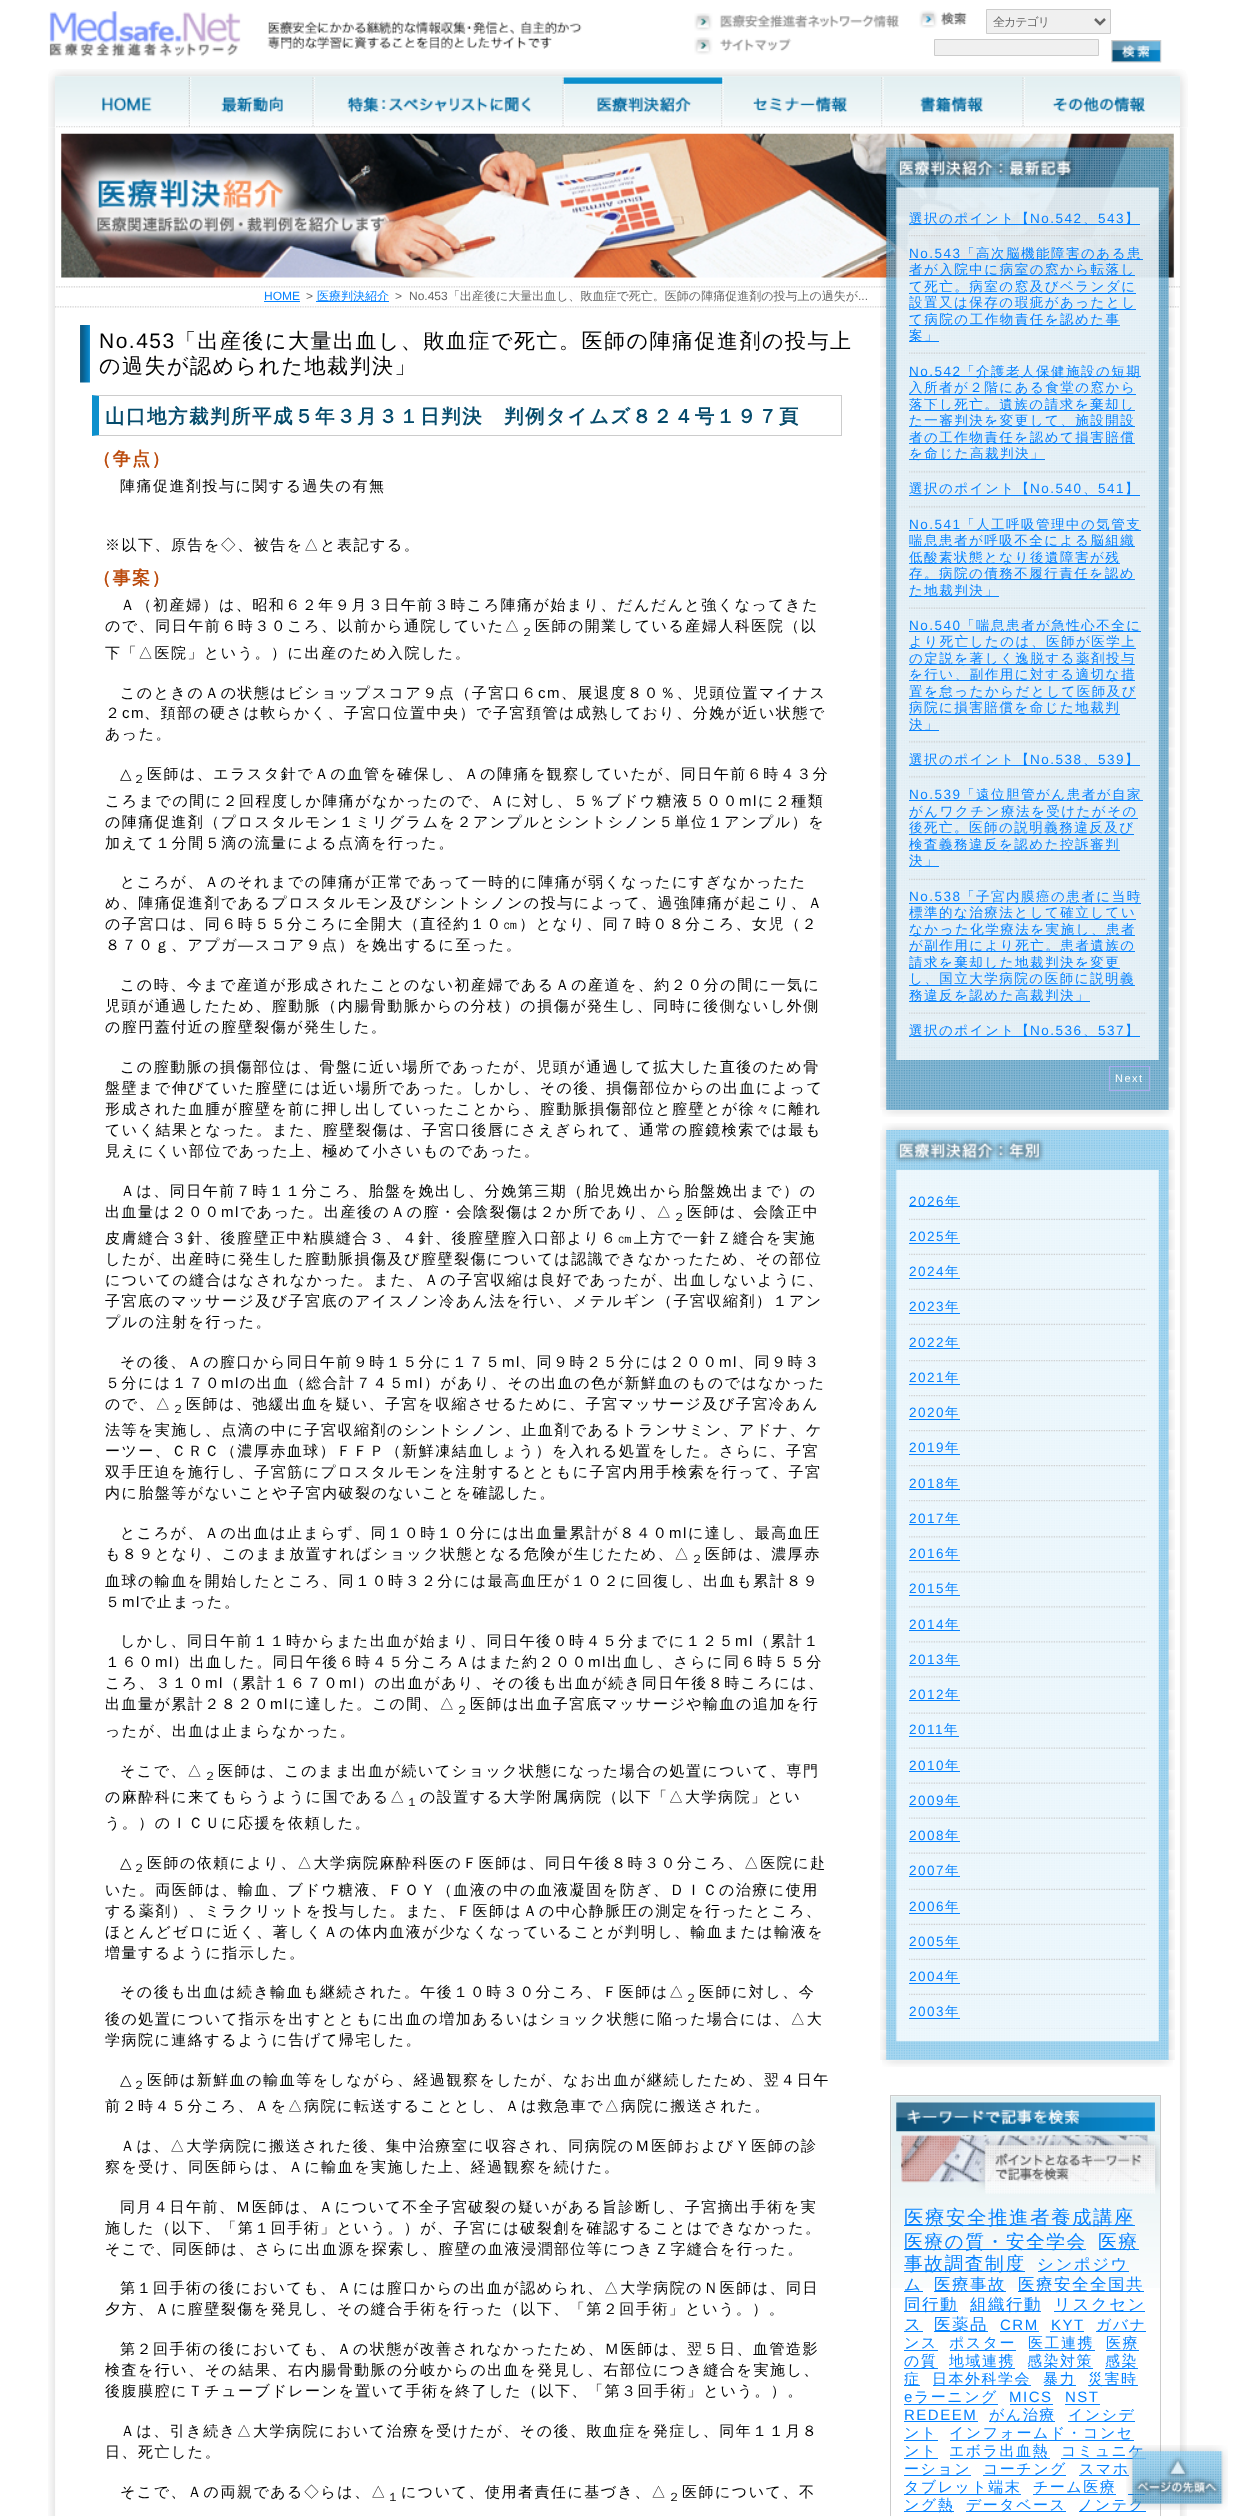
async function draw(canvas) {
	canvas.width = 1235;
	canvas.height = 2516;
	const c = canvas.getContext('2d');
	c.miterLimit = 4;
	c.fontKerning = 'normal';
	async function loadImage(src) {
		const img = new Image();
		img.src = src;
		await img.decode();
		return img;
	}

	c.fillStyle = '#fff';
	c.fillRect(0, 0, 1235, 2516);
	c.drawImage(await loadImage('img1.png'), 49, 11, 533, 46);
	c.drawImage(await loadImage('img2.png'), 694, 13, 205, 18);
	c.drawImage(await loadImage('img3.png'), 694, 37, 98, 18);
	c.drawImage(await loadImage('img4.png'), 919, 10, 48, 18);
	c.fillStyle = '#f0f0f0';
	c.beginPath();
	c.rect(986.5, 9.5, 124, 24);
	c.fill();
	c.strokeStyle = '#ccc';
	c.stroke();
	c.beginPath();
	c.moveTo(1095, 19);
	c.lineTo(1100, 24);
	c.lineTo(1105, 19);
	c.strokeStyle = '#666';
	c.lineWidth = 2.5;
	c.stroke();
	c.letterSpacing = '-1px';
	c.font = '500 12px WenQuanYi Zen Hei';
	c.fillStyle = '#666';
	c.fillText('全カテゴリ', 993, 26);
	c.fillStyle = '#f0f0f0';
	c.beginPath();
	c.rect(934.5, 39.5, 164, 16);
	c.fill();
	c.strokeStyle = '#ccc';
	c.lineWidth = 1;
	c.stroke();
	c.drawImage(await loadImage('img5.png'), 1111, 40, 51, 23);
	c.drawImage(await loadImage('img6.png'), 48, 69, 1140, 59);
	c.drawImage(await loadImage('img7.png'), 55, 76, 135, 52);
	c.drawImage(await loadImage('img8.png'), 190, 76, 124, 52);
	c.drawImage(await loadImage('img9.png'), 313, 76, 251, 52);
	c.drawImage(await loadImage('img10.png'), 563, 76, 160, 52);
	c.drawImage(await loadImage('img11.png'), 722, 76, 161, 52);
	c.drawImage(await loadImage('img12.png'), 882, 76, 142, 52);
	c.drawImage(await loadImage('img13.png'), 1023, 76, 157, 52);
	c.drawImage(await loadImage('img14.png'), 48, 127, 1139, 2389);
	c.drawImage(await loadImage('img15.png'), 56, 286, 1124, 2);
	c.drawImage(await loadImage('img16.png'), 61, 133, 1113, 145);
	c.drawImage(await loadImage('img17.png'), 55, 306, 1124, 2);
	c.letterSpacing = '0px';
	c.font = '12px Liberation Sans';
	c.fillStyle = '#0582ff';
	c.fillText('HOME', 264, 300);
	c.fillRect(264, 301, 36, 1);
	c.fillStyle = '#666';
	c.fillText('>', 306, 300);
	c.fillStyle = '#0582ff';
	c.fillRect(316, 301, 73, 1);
	c.font = '500 12px WenQuanYi Zen Hei';
	c.fillText('医療判決紹介', 317, 300);
	c.font = '12px Liberation Sans';
	c.fillStyle = '#666';
	c.fillText('>', 395, 300);
	c.fillText('No.453', 409, 300);
	c.font = '500 12px WenQuanYi Zen Hei';
	c.fillText('「出産後に大量出血し、敗血症で死亡。医師の陣痛促進剤の投与上の過失が', 448, 300);
	c.font = '12px Liberation Sans';
	c.fillText('...', 858, 300);
	c.drawImage(await loadImage('img18.png'), 80, 325, 10, 58);
	c.letterSpacing = '1.5px';
	c.font = '21px Liberation Sans';
	c.fillStyle = '#000';
	c.fillText('No.453', 99, 348);
	c.font = '500 21px WenQuanYi Zen Hei';
	c.fillText('「出産後に大量出血し、敗血症で死亡。医師の陣痛促進剤の投与上', 175, 348);
	c.fillText('の過失が認められた地裁判決」', 99, 373);
	c.fillStyle = '#ccc';
	c.beginPath();
	c.moveTo(92, 395);
	c.lineTo(842, 395);
	c.lineTo(841, 396);
	c.lineTo(99, 396);
	c.closePath();
	c.fill();
	c.fillRect(841, 395, 1, 41);
	c.beginPath();
	c.moveTo(842, 436);
	c.lineTo(92, 436);
	c.lineTo(99, 435);
	c.lineTo(841, 435);
	c.closePath();
	c.fill();
	c.fillStyle = '#0c90cd';
	c.beginPath();
	c.moveTo(92, 436);
	c.lineTo(92, 395);
	c.lineTo(99, 396);
	c.lineTo(99, 435);
	c.closePath();
	c.fill();
	c.font = 'bold 19.5px WenQuanYi Zen Hei';
	c.fillStyle = '#054b6c';
	c.fillText('山口地方裁判所平成５年３月３１日判決　判例タイムズ８２４号１９７頁', 105, 423);
	c.font = 'bold 18px WenQuanYi Zen Hei';
	c.fillStyle = '#bb4b0d';
	c.fillText('（争点）', 93, 465);
	c.font = '500 15px WenQuanYi Zen Hei';
	c.fillStyle = '#000';
	c.fillText('陣痛促進剤投与に関する過失の有無', 120, 491);
	c.fillText('※以下、原告を◇、被告を△と表記する。', 105, 550);
	c.font = 'bold 18px WenQuanYi Zen Hei';
	c.fillStyle = '#bb4b0d';
	c.fillText('（事案）', 93, 584);
	c.font = '500 15px WenQuanYi Zen Hei';
	c.fillStyle = '#000';
	c.fillText('Ａ（初産婦）は、昭和６２年９月３日午前３時ころ陣痛が始まり、だんだんと強くなってきた', 120, 610);
	c.fillText('ので、同日午前６時３０ころ、以前から通院していた△', 105, 631);
	c.font = '500 12px WenQuanYi Zen Hei';
	c.fillText('２', 521, 636);
	c.font = '500 15px WenQuanYi Zen Hei';
	for (const [text, x, y] of [
		['医師の開業している産婦人科医院（以', 535, 631],
		['下「△医院」という。）に出産のため入院した。', 105, 658],
		['このときのＡの状態はビショップスコア９点（子宮口６', 120, 698],
	]) {
		c.fillText(text, x, y);
	}
	c.font = '15px Liberation Sans';
	c.fillText('cm', 538, 698);
	c.font = '500 15px WenQuanYi Zen Hei';
	c.fillText('、展退度８０％、児頭位置マイナス', 561, 698);
	c.fillText('２', 105, 718);
	c.font = '15px Liberation Sans';
	c.fillText('cm', 122, 718);
	c.font = '500 15px WenQuanYi Zen Hei';
	c.fillText('、頚部の硬さは軟らかく、子宮口位置中央）で子宮頚管は成熟しており、分娩が近い状態で', 144, 718);
	c.fillText('あった。', 105, 739);
	c.font = '15px DejaVu Sans';
	c.fillText('△', 120, 779);
	c.font = '500 12px WenQuanYi Zen Hei';
	c.fillText('２', 133, 783);
	c.font = '500 15px WenQuanYi Zen Hei';
	c.fillText('医師は、エラスタ針でＡの血管を確保し、Ａの陣痛を観察していたが、同日午前６時４３分', 147, 779);
	c.fillText('ころまでの間に２回程度しか陣痛がなかったので、Ａに対し、５％ブドウ糖液５００', 105, 806);
	c.font = '15px Liberation Sans';
	c.fillText('ml', 739, 806);
	c.font = '500 15px WenQuanYi Zen Hei';
	for (const [text, x, y] of [
		['に２種類', 758, 806],
		['の陣痛促進剤（プロスタルモン１ミリグラムを２アンプルとシントシノン５単位１アンプル）を', 105, 827],
		['加えて１分間５滴の流量による点滴を行った。', 105, 848],
		['ところが、Ａのそれまでの陣痛が正常であって一時的に陣痛が弱くなったにすぎなかったた', 120, 887],
		['め、陣痛促進剤であるプロスタルモン及びシントシノンの投与によって、過強陣痛が起こり、Ａ', 105, 908],
		['の子宮口は、同６時５５分ころに全開大（直径約１０㎝）となり、同７時０８分ころ、女児（２', 105, 929],
		['８７０ｇ、アプガ', 105, 950],
	]) {
		c.fillText(text, x, y);
	}
	c.font = '15px Liberation Sans';
	c.fillText('―', 238, 950);
	c.font = '500 15px WenQuanYi Zen Hei';
	for (const [text, x, y] of [
		['スコア９点）を娩出するに至った。', 255, 950],
		['この時、今まで産道が形成されたことのない初産婦であるＡの産道を、約２０分の間に一気に', 120, 990],
		['児頭が通過したため、膣動脈（内腸骨動脈からの分枝）の損傷が発生し、同時に後側ないし外側', 105, 1011],
		['の膣円蓋付近の膣壁裂傷が発生した。', 105, 1032],
		['この膣動脈の損傷部位は、骨盤に近い場所であったが、児頭が通過して拡大した直後のため骨', 120, 1072],
		['盤壁まで伸びていた膣壁には近い場所であった。しかし、その後、損傷部位からの出血によって', 105, 1093],
		['形成された血腫が膣壁を前に押し出していったことから、膣動脈損傷部位と膣壁とが徐々に離れ', 105, 1114],
		['ていく結果となった。また、膣壁裂傷は、子宮口後唇にさえぎられて、通常の膣鏡検索では最も', 105, 1135],
		['見えにくい部位であった上、極めて小さいものであった。', 105, 1156],
		['Ａは、同日午前７時１１分ころ、胎盤を娩出し、分娩第三期（胎児娩出から胎盤娩出まで）の', 120, 1196],
		['出血量は２００', 105, 1217],
	]) {
		c.fillText(text, x, y);
	}
	c.font = '15px Liberation Sans';
	c.fillText('ml', 221, 1217);
	c.font = '500 15px WenQuanYi Zen Hei';
	c.fillText('であった。出産後のＡの膣・会陰裂傷は２か所であり、△', 240, 1217);
	c.font = '500 12px WenQuanYi Zen Hei';
	c.fillText('２', 673, 1221);
	c.font = '500 15px WenQuanYi Zen Hei';
	for (const [text, x, y] of [
		['医師は、会陰正中', 687, 1217],
		['皮膚縫合３針、後膣壁正中粘膜縫合３、４針、後膣壁膣入口部より６㎝上方で一針Ｚ縫合を実施', 105, 1243],
		['したが、出産時に発生した膣動脈損傷及び膣壁裂傷については認識できなかったため、その部位', 105, 1264],
		['についての縫合はなされなかった。また、Ａの子宮収縮は良好であったが、出血しないように、', 105, 1285],
		['子宮底のマッサージ及び子宮底のアイスノン冷あん法を行い、メテルギン（子宮収縮剤）１アン', 105, 1306],
		['プルの注射を行った。', 105, 1327],
		['その後、Ａの膣口から同日午前９時１５分に１７５', 120, 1367],
	]) {
		c.fillText(text, x, y);
	}
	c.font = '15px Liberation Sans';
	c.fillText('ml', 502, 1367);
	c.font = '500 15px WenQuanYi Zen Hei';
	c.fillText('、同９時２５分には２００', 520, 1367);
	c.font = '15px Liberation Sans';
	c.fillText('ml', 719, 1367);
	c.font = '500 15px WenQuanYi Zen Hei';
	c.fillText('、同９時３', 738, 1367);
	c.fillText('５分には１７０', 105, 1388);
	c.font = '15px Liberation Sans';
	c.fillText('ml', 221, 1388);
	c.font = '500 15px WenQuanYi Zen Hei';
	c.fillText('の出血（総合計７４５', 240, 1388);
	c.font = '15px Liberation Sans';
	c.fillText('ml', 405, 1388);
	c.font = '500 15px WenQuanYi Zen Hei';
	c.fillText('）があり、その出血の色が新鮮血のものではなかった', 424, 1388);
	c.fillText('ので、△', 105, 1409);
	c.font = '500 12px WenQuanYi Zen Hei';
	c.fillText('２', 172, 1413);
	c.font = '500 15px WenQuanYi Zen Hei';
	for (const [text, x, y] of [
		['医師は、弛緩出血を疑い、子宮を収縮させるために、子宮マッサージ及び子宮冷あん', 186, 1409],
		['法等を実施し、点滴の中に子宮収縮剤のシントシノン、止血剤であるトランサミン、アドナ、ケ', 105, 1435],
		['ーツー、ＣＲＣ（濃厚赤血球）ＦＦＰ（新鮮凍結血しょう）を入れる処置をした。さらに、子宮', 105, 1456],
		['双手圧迫を施行し、子宮筋にプロスタルモンを注射するとともに子宮内用手検索を行って、子宮', 105, 1477],
		['内に胎盤等がないことや子宮内破裂のないことを確認した。', 105, 1498],
		['ところが、Ａの出血は止まらず、同１０時１０分には出血量累計が８４０', 120, 1538],
	]) {
		c.fillText(text, x, y);
	}
	c.font = '15px Liberation Sans';
	c.fillText('ml', 669, 1538);
	c.font = '500 15px WenQuanYi Zen Hei';
	c.fillText('に達し、最高血圧', 688, 1538);
	c.fillText('も８９となり、このまま放置すればショック状態となる危険が生じたため、△', 105, 1559);
	c.font = '500 12px WenQuanYi Zen Hei';
	c.fillText('２', 691, 1563);
	c.font = '500 15px WenQuanYi Zen Hei';
	for (const [text, x, y] of [
		['医師は、濃厚赤', 705, 1559],
		['血球の輸血を開始したところ、同１０時３２分には最高血圧が１０２に回復し、出血も累計８９', 105, 1586],
		['５', 105, 1607],
	]) {
		c.fillText(text, x, y);
	}
	c.font = '15px Liberation Sans';
	c.fillText('ml', 122, 1607);
	c.font = '500 15px WenQuanYi Zen Hei';
	c.fillText('で止まった。', 140, 1607);
	c.fillText('しかし、同日午前１１時からまた出血が始まり、同日午後０時４５分までに１２５', 120, 1646);
	c.font = '15px Liberation Sans';
	c.fillText('ml', 735, 1646);
	c.font = '500 15px WenQuanYi Zen Hei';
	c.fillText('（累計１', 754, 1646);
	c.fillText('１６０', 105, 1667);
	c.font = '15px Liberation Sans';
	c.fillText('ml', 155, 1667);
	c.font = '500 15px WenQuanYi Zen Hei';
	c.fillText('）出血した。同日午後６時４５分ころＡはまた約２００', 173, 1667);
	c.font = '15px Liberation Sans';
	c.fillText('ml', 588, 1667);
	c.font = '500 15px WenQuanYi Zen Hei';
	c.fillText('出血し、さらに同６時５５分', 607, 1667);
	c.fillText('ころ、３１０', 105, 1688);
	c.font = '15px Liberation Sans';
	c.fillText('ml', 205, 1688);
	c.font = '500 15px WenQuanYi Zen Hei';
	c.fillText('（累計１６７０', 224, 1688);
	c.font = '15px Liberation Sans';
	c.fillText('ml', 339, 1688);
	c.font = '500 15px WenQuanYi Zen Hei';
	c.fillText('）の出血があり、その後も出血が続き同日午後８時ころには、', 358, 1688);
	c.fillText('出血量が累計２８２０', 105, 1709);
	c.font = '15px Liberation Sans';
	c.fillText('ml', 270, 1709);
	c.font = '500 15px WenQuanYi Zen Hei';
	c.fillText('に達した。この間、△', 289, 1709);
	c.font = '500 12px WenQuanYi Zen Hei';
	c.fillText('２', 456, 1714);
	c.font = '500 15px WenQuanYi Zen Hei';
	for (const [text, x, y] of [
		['医師は出血子宮底マッサージや輸血の追加を行', 470, 1709],
		['ったが、出血は止まらなかった。', 105, 1736],
		['そこで、△', 120, 1776],
	]) {
		c.fillText(text, x, y);
	}
	c.font = '500 12px WenQuanYi Zen Hei';
	c.fillText('２', 204, 1780);
	c.font = '500 15px WenQuanYi Zen Hei';
	c.fillText('医師は、このまま出血が続いてショック状態になった場合の処置について、専門', 218, 1776);
	c.fillText('の麻酔科に来てもらうように国である△', 105, 1802);
	c.font = '500 12px WenQuanYi Zen Hei';
	c.fillText('１', 406, 1806);
	c.font = '500 15px WenQuanYi Zen Hei';
	c.fillText('の設置する大学附属病院（以下「△大学病院」とい', 420, 1802);
	c.fillText('う。）のＩＣＵに応援を依頼した。', 105, 1828);
	c.font = '15px DejaVu Sans';
	c.fillText('△', 120, 1868);
	c.font = '500 12px WenQuanYi Zen Hei';
	c.fillText('２', 133, 1872);
	c.font = '500 15px WenQuanYi Zen Hei';
	for (const [text, x, y] of [
		['医師の依頼により、△大学病院麻酔科医のＦ医師は、同日午後８時３０分ころ、△医院に赴', 147, 1868],
		['いた。両医師は、輸血、ブドウ糖液、ＦＯＹ（血液の中の血液凝固を防ぎ、ＤＩＣの治療に使用', 105, 1895],
		['する薬剤）、ミラクリットを投与した。また、Ｆ医師はＡの中心静脈圧の測定を行ったところ、', 105, 1916],
		['ほとんどゼロに近く、著しくＡの体内血液が少なくなっていることが判明し、輸血または輸液を', 105, 1937],
		['増量するように指示した。', 105, 1958],
		['その後も出血は続き輸血も継続された。午後１０時３０分ころ、Ｆ医師は△', 120, 1997],
	]) {
		c.fillText(text, x, y);
	}
	c.font = '500 12px WenQuanYi Zen Hei';
	c.fillText('２', 685, 2002);
	c.font = '500 15px WenQuanYi Zen Hei';
	for (const [text, x, y] of [
		['医師に対し、今', 699, 1997],
		['後の処置について指示を出すとともに出血の増加あるいはショック状態に陥った場合には、△大', 105, 2024],
		['学病院に連絡するように告げて帰宅した。', 105, 2045],
	]) {
		c.fillText(text, x, y);
	}
	c.font = '15px DejaVu Sans';
	c.fillText('△', 120, 2085);
	c.font = '500 12px WenQuanYi Zen Hei';
	c.fillText('２', 133, 2089);
	c.font = '500 15px WenQuanYi Zen Hei';
	for (const [text, x, y] of [
		['医師は新鮮血の輸血等をしながら、経過観察をしたが、なお出血が継続したため、翌４日午', 147, 2085],
		['前２時４５分ころ、Ａを△病院に転送することとし、Ａは救急車で△病院に搬送された。', 105, 2111],
		['Ａは、△大学病院に搬送された後、集中治療室に収容され、同病院のＭ医師およびＹ医師の診', 120, 2151],
		['察を受け、同医師らは、Ａに輸血を実施した上、経過観察を続けた。', 105, 2172],
		['同月４日午前、Ｍ医師は、Ａについて不全子宮破裂の疑いがある旨診断し、子宮摘出手術を実', 120, 2212],
		['施した（以下、「第１回手術」という。）が、子宮には破裂創を確認することはできなかった。', 105, 2233],
		['そこで、同医師は、さらに出血源を探索し、膣壁の血液浸潤部位等につきＺ字縫合を行った。', 105, 2254],
		['第１回手術の後においても、Ａには膣口からの出血が認められ、△大学病院のＮ医師は、同日', 120, 2293],
		['夕方、Ａに膣壁裂傷を発見し、その縫合手術を行った（以下、「第２回手術」という。）。', 105, 2314],
		['第２回手術の後においても、Ａの状態が改善されなかったため、Ｍ医師は、翌５日、血管造影', 120, 2354],
		['検査を行い、その結果、右内腸骨動脈の分岐からの出血を発見し、右部位につき縫合を実施し、', 105, 2375],
		['後腹膜腔にＴチューブドレーンを置いて手術を終了した（以下、「第３回手術」という。）。', 105, 2396],
		['Ａは、引き続き△大学病院において治療を受けたが、その後、敗血症を発症し、同年１１月８', 120, 2436],
		['日、死亡した。', 105, 2457],
		['そこで、Ａの両親である◇らは、△', 120, 2497],
	]) {
		c.fillText(text, x, y);
	}
	c.font = '500 12px WenQuanYi Zen Hei';
	c.fillText('１', 387, 2501);
	c.font = '500 15px WenQuanYi Zen Hei';
	c.fillText('について、使用者責任に基づき、△', 401, 2497);
	c.font = '500 12px WenQuanYi Zen Hei';
	c.fillText('２', 668, 2501);
	c.font = '500 15px WenQuanYi Zen Hei';
	c.fillText('医師について、不', 682, 2497);
	c.drawImage(await loadImage('img20.png'), 880, 147, 295, 963);
	c.drawImage(await loadImage('img19.png'), 883, 141, 289, 7);
	c.drawImage(await loadImage('img21.png'), 895, 156, 180, 25);
	c.drawImage(await loadImage('img22.png'), 896, 187, 263, 873);
	c.drawImage(await loadImage('img23.png'), 909, 235, 238, 2);
	c.fillStyle = '#0582ff';
	c.fillRect(909, 224, 231, 1);
	c.font = '500 13.5px WenQuanYi Zen Hei';
	c.fillText('選択のポイント【', 909, 223);
	c.font = '13.5px Liberation Sans';
	c.fillText('No.542', 1030, 223);
	c.font = '500 13.5px WenQuanYi Zen Hei';
	c.fillText('、', 1083, 223);
	c.font = '13.5px Liberation Sans';
	c.fillText('543', 1098, 223);
	c.font = '500 13.5px WenQuanYi Zen Hei';
	c.fillText('】', 1125, 223);
	c.drawImage(await loadImage('img24.png'), 909, 352, 238, 2);
	c.font = '13.5px Liberation Sans';
	c.fillText('No.543', 909, 258);
	c.fillRect(909, 259, 234, 1);
	c.font = '500 13.5px WenQuanYi Zen Hei';
	c.fillText('「高次脳機能障害のある患', 961, 258);
	c.fillRect(909, 275, 226, 1);
	c.fillText('者が入院中に病室の窓から転落し', 909, 274);
	c.fillRect(909, 293, 227, 1);
	c.fillText('て死亡。病室の窓及びベランダに', 909, 291);
	c.fillRect(909, 309, 227, 1);
	c.fillText('設置又は保存の瑕疵があったとし', 909, 307);
	c.fillRect(909, 325, 211, 1);
	c.fillText('て病院の工作物責任を認めた事', 909, 324);
	c.fillRect(909, 341, 30, 1);
	c.fillText('案」', 909, 340);
	c.drawImage(await loadImage('img25.png'), 909, 471, 238, 2);
	c.fillRect(909, 376, 232, 1);
	c.font = '13.5px Liberation Sans';
	c.fillText('No.542', 909, 376);
	c.font = '500 13.5px WenQuanYi Zen Hei';
	c.fillText('「介護老人保健施設の短期', 961, 376);
	c.fillRect(909, 394, 227, 1);
	c.fillText('入所者が２階にある食堂の窓から', 909, 392);
	c.fillRect(909, 410, 226, 1);
	c.fillText('落下し死亡。遺族の請求を棄却し', 909, 409);
	c.fillRect(909, 426, 226, 1);
	c.fillText('た一審判決を変更して、施設開設', 909, 425);
	c.fillRect(909, 443, 226, 1);
	c.fillText('者の工作物責任を認めて損害賠償', 909, 442);
	c.fillRect(909, 459, 136, 1);
	c.fillText('を命じた高裁判決」', 909, 458);
	c.drawImage(await loadImage('img25.png'), 909, 506, 238, 2);
	c.fillText('選択のポイント【', 909, 493);
	c.font = '13.5px Liberation Sans';
	c.fillText('No.540', 1030, 493);
	c.font = '500 13.5px WenQuanYi Zen Hei';
	c.fillText('、', 1083, 493);
	c.fillRect(909, 495, 231, 1);
	c.font = '13.5px Liberation Sans';
	c.fillText('541', 1098, 493);
	c.font = '500 13.5px WenQuanYi Zen Hei';
	c.fillText('】', 1125, 493);
	c.drawImage(await loadImage('img24.png'), 909, 607, 238, 2);
	c.font = '13.5px Liberation Sans';
	c.fillText('No.541', 909, 529);
	c.fillRect(909, 530, 232, 1);
	c.font = '500 13.5px WenQuanYi Zen Hei';
	c.fillText('「人工呼吸管理中の気管支', 961, 529);
	c.fillRect(909, 546, 226, 1);
	c.fillText('喘息患者が呼吸不全による脳組織', 909, 545);
	c.fillRect(909, 563, 211, 1);
	c.fillText('低酸素状態となり後遺障害が残', 909, 562);
	c.fillRect(909, 579, 226, 1);
	c.fillText('存。病院の債務不履行責任を認め', 909, 578);
	c.fillRect(909, 596, 90, 1);
	c.fillText('た地裁判決」', 909, 595);
	c.drawImage(await loadImage('img25.png'), 909, 741, 238, 2);
	c.font = '13.5px Liberation Sans';
	c.fillText('No.540', 909, 630);
	c.fillRect(909, 631, 232, 1);
	c.font = '500 13.5px WenQuanYi Zen Hei';
	c.fillText('「喘息患者が急性心不全に', 961, 630);
	c.fillRect(909, 648, 227, 1);
	c.fillText('より死亡したのは、医師が医学上', 909, 646);
	c.fillRect(909, 664, 226, 1);
	c.fillText('の定説を著しく逸脱する薬剤投与', 909, 663);
	c.fillRect(909, 680, 226, 1);
	c.fillText('を行い、副作用に対する適切な措', 909, 679);
	c.fillRect(909, 698, 227, 1);
	c.fillText('置を怠ったからだとして医師及び', 909, 696);
	c.fillRect(909, 714, 211, 1);
	c.fillText('病院に損害賠償を命じた地裁判', 909, 712);
	c.fillRect(909, 730, 30, 1);
	c.fillText('決」', 909, 729);
	c.drawImage(await loadImage('img25.png'), 909, 776, 238, 2);
	c.fillRect(909, 765, 231, 1);
	c.fillText('選択のポイント【', 909, 764);
	c.font = '13.5px Liberation Sans';
	c.fillText('No.538', 1030, 764);
	c.font = '500 13.5px WenQuanYi Zen Hei';
	c.fillText('、', 1083, 764);
	c.font = '13.5px Liberation Sans';
	c.fillText('539', 1098, 764);
	c.font = '500 13.5px WenQuanYi Zen Hei';
	c.fillText('】', 1125, 764);
	c.drawImage(await loadImage('img26.png'), 909, 878, 238, 2);
	c.font = '13.5px Liberation Sans';
	c.fillText('No.539', 909, 799);
	c.fillRect(909, 800, 234, 1);
	c.font = '500 13.5px WenQuanYi Zen Hei';
	c.fillText('「遠位胆管がん患者が自家', 961, 799);
	c.fillRect(909, 818, 229, 1);
	c.fillText('がんワクチン療法を受けたがその', 909, 816);
	c.fillText('後死亡。医師の説明義務違反及び', 909, 832);
	c.fillRect(909, 834, 225, 1);
	c.fillRect(909, 850, 211, 1);
	c.fillText('検査義務違反を認めた控訴審判', 909, 849);
	c.fillRect(909, 866, 30, 1);
	c.fillText('決」', 909, 865);
	c.drawImage(await loadImage('img24.png'), 909, 1012, 238, 2);
	c.font = '13.5px Liberation Sans';
	c.fillText('No.538', 909, 901);
	c.fillRect(909, 903, 232, 1);
	c.font = '500 13.5px WenQuanYi Zen Hei';
	c.fillText('「子宮内膜癌の患者に当時', 961, 901);
	c.fillRect(909, 919, 227, 1);
	c.fillText('標準的な治療法として確立してい', 909, 917);
	c.fillRect(909, 935, 226, 1);
	c.fillText('なかった化学療法を実施し、患者', 909, 934);
	c.fillRect(909, 951, 226, 1);
	c.fillText('が副作用により死亡。患者遺族の', 909, 950);
	c.fillRect(909, 968, 211, 1);
	c.fillText('請求を棄却した地裁判決を変更', 909, 967);
	c.fillText('し、国立大学病院の医師に説明義', 909, 983);
	c.fillRect(909, 985, 226, 1);
	c.fillRect(909, 1001, 181, 1);
	c.fillText('務違反を認めた高裁判決」', 909, 1000);
	c.drawImage(await loadImage('img27.png'), 909, 1047, 236, 1);
	c.fillRect(909, 1036, 231, 1);
	c.fillText('選択のポイント【', 909, 1035);
	c.font = '13.5px Liberation Sans';
	c.fillText('No.536', 1030, 1035);
	c.font = '500 13.5px WenQuanYi Zen Hei';
	c.fillText('、', 1083, 1035);
	c.font = '13.5px Liberation Sans';
	c.fillText('537', 1098, 1035);
	c.font = '500 13.5px WenQuanYi Zen Hei';
	c.fillText('】', 1125, 1035);
	c.strokeStyle = '#aae';
	c.strokeRect(1109.5, 1066.5, 40, 24);
	c.font = '11px Liberation Sans';
	c.fillStyle = '#fff';
	c.fillText('Next', 1115, 1082);
	c.drawImage(await loadImage('img28.png'), 882, 1110, 291, 7);
	c.drawImage(await loadImage('img29.png'), 882, 1123, 291, 7);
	c.drawImage(await loadImage('img30.png'), 880, 1130, 295, 930);
	c.drawImage(await loadImage('img31.png'), 895, 1138, 149, 25);
	c.drawImage(await loadImage('img32.png'), 896, 1170, 263, 872);
	c.drawImage(await loadImage('img33.png'), 909, 1218, 238, 2);
	c.fillStyle = '#0582ff';
	c.fillRect(909, 1206, 51, 1);
	c.font = '13.5px Liberation Sans';
	c.fillText('2026', 909, 1206);
	c.font = '500 13.5px WenQuanYi Zen Hei';
	c.fillText('年', 945, 1206);
	c.drawImage(await loadImage('img34.png'), 909, 1253, 238, 2);
	c.font = '13.5px Liberation Sans';
	c.fillText('2025', 909, 1241);
	c.fillRect(909, 1243, 51, 1);
	c.font = '500 13.5px WenQuanYi Zen Hei';
	c.fillText('年', 945, 1241);
	c.drawImage(await loadImage('img35.png'), 909, 1288, 238, 2);
	c.font = '13.5px Liberation Sans';
	c.fillText('2024', 909, 1276);
	c.fillRect(909, 1278, 51, 1);
	c.font = '500 13.5px WenQuanYi Zen Hei';
	c.fillText('年', 945, 1276);
	c.drawImage(await loadImage('img36.png'), 909, 1323, 238, 2);
	c.font = '13.5px Liberation Sans';
	c.fillText('2023', 909, 1311);
	c.fillRect(909, 1313, 51, 1);
	c.font = '500 13.5px WenQuanYi Zen Hei';
	c.fillText('年', 945, 1311);
	c.drawImage(await loadImage('img37.png'), 909, 1360, 238, 2);
	c.font = '13.5px Liberation Sans';
	c.fillText('2022', 909, 1347);
	c.fillRect(909, 1348, 51, 1);
	c.font = '500 13.5px WenQuanYi Zen Hei';
	c.fillText('年', 945, 1347);
	c.drawImage(await loadImage('img38.png'), 909, 1395, 238, 2);
	c.font = '13.5px Liberation Sans';
	c.fillText('2021', 909, 1382);
	c.fillRect(909, 1384, 51, 1);
	c.font = '500 13.5px WenQuanYi Zen Hei';
	c.fillText('年', 945, 1382);
	c.drawImage(await loadImage('img39.png'), 909, 1430, 238, 2);
	c.font = '13.5px Liberation Sans';
	c.fillText('2020', 909, 1417);
	c.fillRect(909, 1419, 51, 1);
	c.font = '500 13.5px WenQuanYi Zen Hei';
	c.fillText('年', 945, 1417);
	c.drawImage(await loadImage('img40.png'), 909, 1465, 238, 2);
	c.font = '13.5px Liberation Sans';
	c.fillText('2019', 909, 1452);
	c.fillRect(909, 1454, 51, 1);
	c.font = '500 13.5px WenQuanYi Zen Hei';
	c.fillText('年', 945, 1452);
	c.drawImage(await loadImage('img37.png'), 909, 1500, 238, 2);
	c.font = '13.5px Liberation Sans';
	c.fillText('2018', 909, 1488);
	c.fillRect(909, 1489, 51, 1);
	c.font = '500 13.5px WenQuanYi Zen Hei';
	c.fillText('年', 945, 1488);
	c.drawImage(await loadImage('img41.png'), 909, 1536, 238, 2);
	c.font = '13.5px Liberation Sans';
	c.fillText('2017', 909, 1523);
	c.fillRect(909, 1524, 51, 1);
	c.font = '500 13.5px WenQuanYi Zen Hei';
	c.fillText('年', 945, 1523);
	c.drawImage(await loadImage('img42.png'), 909, 1571, 238, 2);
	c.font = '13.5px Liberation Sans';
	c.fillText('2016', 909, 1558);
	c.fillRect(909, 1560, 51, 1);
	c.font = '500 13.5px WenQuanYi Zen Hei';
	c.fillText('年', 945, 1558);
	c.drawImage(await loadImage('img43.png'), 909, 1606, 238, 2);
	c.font = '13.5px Liberation Sans';
	c.fillText('2015', 909, 1593);
	c.fillRect(909, 1595, 51, 1);
	c.font = '500 13.5px WenQuanYi Zen Hei';
	c.fillText('年', 945, 1593);
	c.drawImage(await loadImage('img44.png'), 909, 1641, 238, 2);
	c.font = '13.5px Liberation Sans';
	c.fillText('2014', 909, 1629);
	c.fillRect(909, 1630, 51, 1);
	c.font = '500 13.5px WenQuanYi Zen Hei';
	c.fillText('年', 945, 1629);
	c.drawImage(await loadImage('img41.png'), 909, 1676, 238, 2);
	c.font = '13.5px Liberation Sans';
	c.fillText('2013', 909, 1664);
	c.fillRect(909, 1665, 51, 1);
	c.font = '500 13.5px WenQuanYi Zen Hei';
	c.fillText('年', 945, 1664);
	c.drawImage(await loadImage('img45.png'), 909, 1712, 238, 2);
	c.font = '13.5px Liberation Sans';
	c.fillText('2012', 909, 1699);
	c.fillRect(909, 1700, 51, 1);
	c.font = '500 13.5px WenQuanYi Zen Hei';
	c.fillText('年', 945, 1699);
	c.drawImage(await loadImage('img46.png'), 909, 1747, 238, 2);
	c.font = '13.5px Liberation Sans';
	c.fillText('2011', 909, 1734);
	c.fillRect(909, 1736, 50, 1);
	c.font = '500 13.5px WenQuanYi Zen Hei';
	c.fillText('年', 944, 1734);
	c.drawImage(await loadImage('img47.png'), 909, 1782, 238, 2);
	c.font = '13.5px Liberation Sans';
	c.fillText('2010', 909, 1770);
	c.fillRect(909, 1771, 51, 1);
	c.font = '500 13.5px WenQuanYi Zen Hei';
	c.fillText('年', 945, 1770);
	c.drawImage(await loadImage('img48.png'), 909, 1817, 238, 2);
	c.font = '13.5px Liberation Sans';
	c.fillText('2009', 909, 1805);
	c.fillRect(909, 1806, 51, 1);
	c.font = '500 13.5px WenQuanYi Zen Hei';
	c.fillText('年', 945, 1805);
	c.drawImage(await loadImage('img45.png'), 909, 1852, 238, 2);
	c.font = '13.5px Liberation Sans';
	c.fillText('2008', 909, 1840);
	c.fillRect(909, 1841, 51, 1);
	c.font = '500 13.5px WenQuanYi Zen Hei';
	c.fillText('年', 945, 1840);
	c.drawImage(await loadImage('img35.png'), 909, 1888, 238, 2);
	c.font = '13.5px Liberation Sans';
	c.fillText('2007', 909, 1875);
	c.fillRect(909, 1876, 51, 1);
	c.font = '500 13.5px WenQuanYi Zen Hei';
	c.fillText('年', 945, 1875);
	c.drawImage(await loadImage('img36.png'), 909, 1923, 238, 2);
	c.font = '13.5px Liberation Sans';
	c.fillText('2006', 909, 1911);
	c.fillRect(909, 1913, 51, 1);
	c.font = '500 13.5px WenQuanYi Zen Hei';
	c.fillText('年', 945, 1911);
	c.drawImage(await loadImage('img33.png'), 909, 1958, 238, 2);
	c.font = '13.5px Liberation Sans';
	c.fillText('2005', 909, 1946);
	c.fillRect(909, 1948, 51, 1);
	c.font = '500 13.5px WenQuanYi Zen Hei';
	c.fillText('年', 945, 1946);
	c.drawImage(await loadImage('img34.png'), 909, 1993, 238, 2);
	c.font = '13.5px Liberation Sans';
	c.fillText('2004', 909, 1981);
	c.fillRect(909, 1983, 51, 1);
	c.font = '500 13.5px WenQuanYi Zen Hei';
	c.fillText('年', 945, 1981);
	c.drawImage(await loadImage('img49.png'), 909, 2028, 236, 1);
	c.font = '13.5px Liberation Sans';
	c.fillText('2003', 909, 2016);
	c.fillRect(909, 2018, 51, 1);
	c.font = '500 13.5px WenQuanYi Zen Hei';
	c.fillText('年', 945, 2016);
	c.drawImage(await loadImage('img28.png'), 882, 2060, 291, 7);
	c.drawImage(await loadImage('img50.png'), 891, 2096, 269, 192);
	c.strokeStyle = '#ccc';
	c.strokeRect(890.5, 2095.5, 270, 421);
	c.drawImage(await loadImage('img51.png'), 896, 2102, 259, 30);
	c.fillRect(904, 2225, 231, 1);
	c.font = '500 19.5px WenQuanYi Zen Hei';
	c.fillText('医療安全推進者養成講座', 904, 2224);
	c.fillRect(904, 2249, 182, 1);
	c.font = '500 18.75px WenQuanYi Zen Hei';
	c.fillText('医療の質・安全学会', 904, 2248);
	c.fillRect(1099, 2249, 40, 1);
	c.fillText('医療', 1098, 2248);
	c.fillRect(904, 2271, 121, 1);
	c.fillText('事故調査制度', 904, 2270);
	c.fillRect(1038, 2271, 91, 1);
	c.font = '500 16.5px WenQuanYi Zen Hei';
	c.fillText('シンポジウ', 1037, 2270);
	c.fillText('ム', 904, 2290);
	c.fillRect(904, 2291, 19, 1);
	c.fillRect(934, 2291, 72, 1);
	c.fillText('医療事故', 934, 2290);
	c.fillRect(1018, 2291, 126, 1);
	c.fillText('医療安全全国共', 1018, 2290);
	c.fillRect(904, 2311, 54, 1);
	c.fillText('同行動', 904, 2310);
	c.fillRect(970, 2311, 71, 1);
	c.fillText('組織行動', 970, 2310);
	c.fillRect(1054, 2311, 91, 1);
	c.fillText('リスクセン', 1054, 2310);
	c.fillText('ス', 904, 2330);
	c.fillRect(904, 2331, 19, 1);
	c.fillRect(934, 2331, 54, 1);
	c.fillText('医薬品', 934, 2330);
	c.font = '15px Liberation Sans';
	c.fillText('CRM', 1000, 2330);
	c.fillRect(1000, 2331, 39, 1);
	c.fillText('KYT', 1051, 2330);
	c.fillRect(1050, 2331, 34, 1);
	c.fillRect(1096, 2331, 50, 1);
	c.font = '500 15px WenQuanYi Zen Hei';
	c.fillText('ガバナ', 1096, 2330);
	c.fillText('ンス', 904, 2348);
	c.fillRect(904, 2350, 34, 1);
	c.fillRect(950, 2350, 66, 1);
	c.fillText('ポスター', 949, 2348);
	c.fillRect(1029, 2350, 66, 1);
	c.fillText('医工連携', 1028, 2348);
	c.fillText('医療', 1106, 2348);
	c.fillRect(1106, 2350, 33, 1);
	c.fillRect(904, 2368, 34, 1);
	c.fillText('の質', 904, 2366);
	c.fillRect(949, 2368, 66, 1);
	c.fillText('地域連携', 949, 2366);
	c.fillRect(1028, 2368, 65, 1);
	c.fillText('感染対策', 1027, 2366);
	c.fillRect(1105, 2368, 33, 1);
	c.fillText('感染', 1105, 2366);
	c.fillRect(904, 2385, 16, 1);
	c.fillText('症', 904, 2384);
	c.fillRect(933, 2385, 98, 1);
	c.fillText('日本外科学会', 932, 2384);
	c.fillRect(1044, 2385, 32, 1);
	c.fillText('暴力', 1043, 2384);
	c.fillRect(1088, 2385, 50, 1);
	c.fillText('災害時', 1088, 2384);
	c.font = '15px Liberation Sans';
	c.fillText('e', 904, 2402);
	c.fillRect(904, 2404, 94, 1);
	c.font = '500 15px WenQuanYi Zen Hei';
	c.fillText('ラーニング', 914, 2402);
	c.font = '15px Liberation Sans';
	c.fillText('MICS', 1009, 2402);
	c.fillRect(1010, 2404, 43, 1);
	c.fillText('NST', 1065, 2402);
	c.fillRect(1065, 2404, 35, 1);
	c.fillText('REDEEM', 904, 2420);
	c.fillRect(904, 2421, 74, 1);
	c.fillRect(989, 2421, 66, 1);
	c.font = '500 15px WenQuanYi Zen Hei';
	c.fillText('がん治療', 989, 2420);
	c.fillRect(1068, 2421, 67, 1);
	c.fillText('インシデ', 1068, 2420);
	c.fillText('ント', 904, 2438);
	c.fillRect(904, 2440, 34, 1);
	c.fillText('インフォームド・コンセ', 949, 2438);
	c.fillRect(950, 2440, 184, 1);
	c.fillText('ント', 904, 2456);
	c.fillRect(904, 2458, 34, 1);
	c.fillRect(950, 2458, 100, 1);
	c.fillText('エボラ出血熱', 949, 2456);
	c.fillText('コミュニケ', 1061, 2456);
	c.fillRect(1061, 2458, 85, 1);
	c.fillRect(904, 2475, 67, 1);
	c.fillText('ーション', 904, 2474);
	c.fillRect(983, 2475, 83, 1);
	c.fillText('コーチング', 983, 2474);
	c.fillRect(1079, 2475, 50, 1);
	c.fillText('スマホ', 1079, 2474);
	c.fillRect(904, 2494, 117, 1);
	c.fillText('タブレット端末', 904, 2492);
	c.fillText('チーム医療', 1033, 2492);
	c.fillRect(1033, 2494, 83, 1);
	c.fillRect(904, 2511, 50, 1);
	c.fillText('ング熱', 904, 2510);
	c.fillRect(1128, 2494, 17, 1);
	c.fillRect(966, 2511, 100, 1);
	c.fillText('データベース', 966, 2510);
	c.fillRect(1079, 2511, 67, 1);
	c.fillText('ノンテク', 1078, 2510);
	c.drawImage(await loadImage('img52.png'), 1126, 2445, 102, 65);
}

draw(document.querySelector('canvas'));
